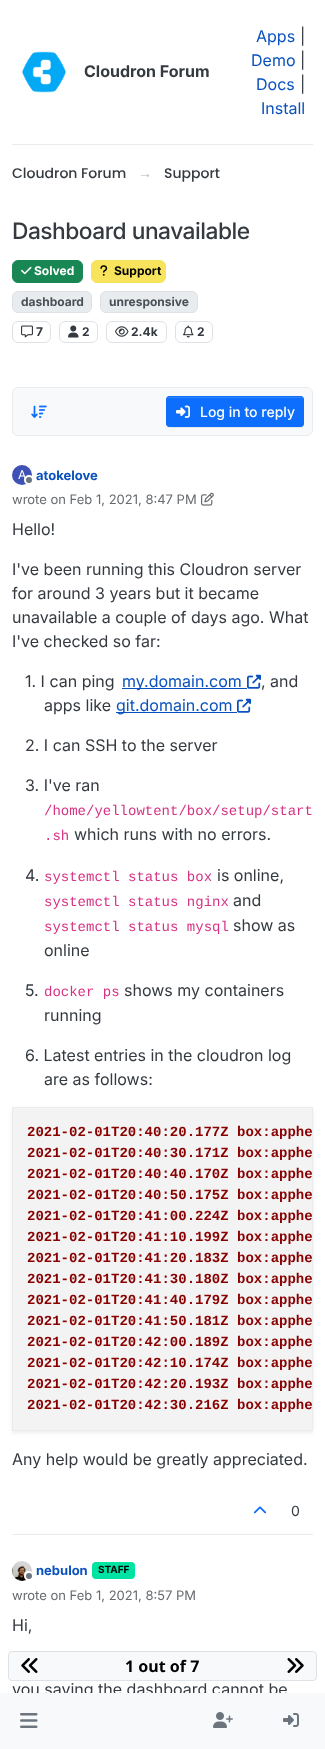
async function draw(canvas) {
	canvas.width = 325;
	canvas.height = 1749;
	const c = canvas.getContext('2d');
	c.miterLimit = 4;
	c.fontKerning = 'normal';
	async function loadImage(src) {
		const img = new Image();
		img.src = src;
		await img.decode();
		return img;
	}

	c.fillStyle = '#fff';
	c.fillRect(0, 0, 325, 1749);
	c.fillStyle = '#e9ecef';
	c.fillRect(12, 144, 301, 1);
	c.drawImage(await loadImage('img1.png'), 22, 51, 44, 42);
	c.font = 'bold 16px Inter';
	c.fillStyle = '#343a40';
	c.fillText('Cloudron Forum', 84, 77);
	c.font = '16px Inter';
	c.fillStyle = '#0951be';
	c.fillText('Apps', 256, 42);
	c.fillStyle = '#343a40';
	c.fillText('|', 300, 42);
	c.fillStyle = '#0951be';
	c.fillText('Demo', 251, 66);
	c.fillStyle = '#343a40';
	c.fillText('|', 300, 66);
	c.fillStyle = '#0951be';
	c.fillText('Docs', 256, 90);
	c.fillStyle = '#343a40';
	c.fillText('|', 300, 90);
	c.fillStyle = '#0951be';
	c.fillText('Install', 261, 114);
	c.font = '500 14px Poppins';
	c.fillStyle = '#343a40';
	c.fillText('Cloudron Forum', 12, 178);
	c.font = '14px Liberation Sans';
	c.fillStyle = '#adb5bd';
	c.fillText('→', 138, 178);
	c.font = '500 14px Poppins';
	c.fillStyle = '#343a40';
	c.fillText('Support', 164, 178);
	c.letterSpacing = '-0.5px';
	c.font = '500 22.75px Inter';
	c.fillText('Dashboard unavailable', 12, 239);
	c.fillStyle = '#198754';
	c.beginPath();
	c.roundRect(12.5, 260.5, 70, 22, 5.5);
	c.fill();
	c.strokeStyle = '#198754';
	c.stroke();
	c.drawImage(await loadImage('img2.png'), 21, 266, 11, 9);
	c.letterSpacing = '0px';
	c.font = 'bold 12px Inter';
	c.fillStyle = '#fff';
	c.fillText('Solved', 34, 275);
	c.fillStyle = '#f8e45c';
	c.beginPath();
	c.roundRect(91.5, 260.5, 74, 22, 5.5);
	c.fill();
	c.strokeStyle = '#f8e45c';
	c.stroke();
	c.drawImage(await loadImage('img3.png'), 100, 265, 8, 11);
	c.fillStyle = '#000';
	c.fillText('Support', 114, 275);
	c.fillStyle = '#e9ecef';
	c.beginPath();
	c.roundRect(12.5, 291.5, 79, 21, 5.5);
	c.fill();
	c.strokeStyle = '#dee2e6';
	c.stroke();
	c.fillStyle = '#495057';
	c.fillText('dashboard', 21, 306);
	c.fillStyle = '#e9ecef';
	c.beginPath();
	c.roundRect(100.5, 291.5, 97, 21, 5.5);
	c.fill();
	c.stroke();
	c.fillStyle = '#495057';
	c.fillText('unresponsive', 109, 306);
	c.beginPath();
	c.roundRect(12.5, 321.5, 38, 21, 5.5);
	c.stroke();
	c.drawImage(await loadImage('img4.png'), 21, 325, 12, 13);
	c.fillStyle = '#343a40';
	c.fillText('7', 36, 336);
	c.beginPath();
	c.roundRect(59.5, 321.5, 38, 21, 5.5);
	c.stroke();
	c.drawImage(await loadImage('img5.png'), 68, 325, 11, 13);
	c.fillText('2', 82, 336);
	c.beginPath();
	c.roundRect(106.5, 321.5, 60, 21, 5.5);
	c.stroke();
	c.drawImage(await loadImage('img6.png'), 115, 326, 14, 11);
	c.fillText('2.4k', 131, 336);
	c.beginPath();
	c.roundRect(175.5, 321.5, 37, 21, 5.5);
	c.stroke();
	c.drawImage(await loadImage('img7.png'), 183, 325, 11, 13);
	c.fillText('2', 197, 336);
	c.fillStyle = '#f8f9fa';
	c.beginPath();
	c.roundRect(12.5, 387.5, 300, 48, 5.5);
	c.fill();
	c.strokeStyle = '#e9ecef';
	c.stroke();
	c.drawImage(await loadImage('img8.png'), 31, 405, 16, 13);
	c.fillStyle = '#00000012';
	c.filter = 'blur(0.5px)';
	c.beginPath();
	c.roundRect(166, 397, 138, 31, 4);
	c.fill();
	c.filter = 'none';
	c.fillStyle = '#0d6efd';
	c.beginPath();
	c.roundRect(166, 396, 138, 31, 4);
	c.fill();
	c.fillStyle = '#3184fd';
	c.beginPath();
	c.moveTo(170, 398);
	c.lineTo(300, 398);
	c.bezierCurveTo(302, 398, 303, 399, 303, 401);
	c.bezierCurveTo(303, 399, 303, 397, 301, 397);
	c.lineTo(169, 397);
	c.bezierCurveTo(167, 397, 167, 399, 167, 401);
	c.bezierCurveTo(167, 399, 168, 398, 170, 398);
	c.closePath();
	c.fill();
	c.beginPath();
	c.roundRect(166.5, 396.5, 137, 30, 3.5);
	c.strokeStyle = '#0d6efd';
	c.stroke();
	c.drawImage(await loadImage('img9.png'), 176, 405, 14, 13);
	c.font = '500 14px Inter';
	c.fillStyle = '#fff';
	c.fillText('Log in to reply', 200, 417);
	c.fillStyle = '#3f51b5';
	c.beginPath();
	c.arc(22, 475, 10, 0, 2 * Math.PI);
	c.fill();
	c.font = '12px Inter';
	c.fillStyle = '#fff';
	c.fillText('A', 18, 479);
	c.fillStyle = '#6c757d';
	c.beginPath();
	c.arc(29, 480, 4, 0, 2 * Math.PI);
	c.fill();
	c.strokeStyle = '#fff';
	c.lineWidth = 2;
	c.stroke();
	c.font = 'bold 13px Inter';
	c.fillStyle = '#0951be';
	c.fillText('atokelove', 36, 480);
	c.font = '13px Inter';
	c.fillStyle = '#676b70';
	c.fillText('wrote on Feb 1, 2021, 8:47 PM', 12, 504);
	c.drawImage(await loadImage('img10.png'), 201, 492, 13, 14);
	c.font = '16px Inter';
	c.fillStyle = '#343a40';
	for (const [text, x, y] of [
		['Hello!', 12, 535],
		['I\'ve been running this Cloudron server', 12, 575],
		['for around 3 years but it became', 12, 599],
		['unavailable a couple of days ago. What', 12, 623],
		['I\'ve checked so far:', 12, 647],
		['1. I can ping', 25, 687],
	]) {
		c.fillText(text, x, y);
	}
	c.fillStyle = '#0951be';
	c.fillRect(122, 688, 125, 1);
	c.fillText('my.domain.com', 122, 687);
	c.drawImage(await loadImage('img11.png'), 247, 674, 14, 15);
	c.fillStyle = '#343a40';
	c.fillText(', and', 261, 687);
	c.fillText('apps like', 44, 711);
	c.fillStyle = '#0951be';
	c.fillRect(116, 712, 121, 1);
	c.fillText('git.domain.com', 116, 711);
	c.drawImage(await loadImage('img11.png'), 237, 698, 14, 15);
	c.fillStyle = '#343a40';
	c.fillText('2. I can SSH to the server', 25, 751);
	c.fillText('3. I\'ve ran', 25, 791);
	c.font = '14px Liberation Mono';
	c.fillStyle = '#d63384';
	c.fillText('/home/yellowtent/box/setup/start', 44, 815);
	c.fillText('.sh', 44, 840);
	c.font = '16px Inter';
	c.fillStyle = '#343a40';
	c.fillText('which runs with no errors.', 74, 840);
	c.fillText('4.', 25, 881);
	c.font = '14px Liberation Mono';
	c.fillStyle = '#d63384';
	c.fillText('systemctl status box', 44, 881);
	c.font = '16px Inter';
	c.fillStyle = '#343a40';
	c.fillText('is online,', 217, 881);
	c.font = '14px Liberation Mono';
	c.fillStyle = '#d63384';
	c.fillText('systemctl status nginx', 44, 906);
	c.font = '16px Inter';
	c.fillStyle = '#343a40';
	c.fillText('and', 233, 906);
	c.font = '14px Liberation Mono';
	c.fillStyle = '#d63384';
	c.fillText('systemctl status mysql', 44, 931);
	c.font = '16px Inter';
	c.fillStyle = '#343a40';
	for (const [text, x, y] of [
		['show as', 233, 931],
		['online', 44, 956],
		['5.', 25, 996],
	]) {
		c.fillText(text, x, y);
	}
	c.font = '14px Liberation Mono';
	c.fillStyle = '#d63384';
	c.fillText('docker ps', 44, 996);
	c.font = '16px Inter';
	c.fillStyle = '#343a40';
	for (const [text, x, y] of [
		['shows my containers', 124, 996],
		['running', 44, 1021],
		['6. Latest entries in the cloudron log', 25, 1061],
		['are as follows:', 44, 1085],
	]) {
		c.fillText(text, x, y);
	}
	c.fillStyle = '#00000012';
	c.filter = 'blur(2px)';
	c.beginPath();
	c.rect(12, 1109, 301, 324);
	c.fill();
	c.filter = 'none';
	c.strokeStyle = '#e9ecef';
	c.lineWidth = 1;
	c.strokeRect(12.5, 1107.5, 300, 323);
	c.fillStyle = '#f3f3f3';
	c.fillRect(13, 1108, 299, 322);
	c.font = 'bold 14px Liberation Mono';
	c.fillStyle = '#800';
	for (const [text, x, y] of [
		['2021-02-01T20:40:20.177Z box:apphe', 27, 1136],
		['2021-02-01T20:40:30.171Z box:apphe', 27, 1157],
		['2021-02-01T20:40:40.170Z box:apphe', 27, 1178],
		['2021-02-01T20:40:50.175Z box:apphe', 27, 1199],
		['2021-02-01T20:41:00.224Z box:apphe', 27, 1220],
		['2021-02-01T20:41:10.199Z box:apphe', 27, 1241],
		['2021-02-01T20:41:20.183Z box:apphe', 27, 1262],
		['2021-02-01T20:41:30.180Z box:apphe', 27, 1283],
		['2021-02-01T20:41:40.179Z box:apphe', 27, 1304],
		['2021-02-01T20:41:50.181Z box:apphe', 27, 1325],
		['2021-02-01T20:42:00.189Z box:apphe', 27, 1346],
		['2021-02-01T20:42:10.174Z box:apphe', 27, 1367],
		['2021-02-01T20:42:20.193Z box:apphe', 27, 1388],
		['2021-02-01T20:42:30.216Z box:apphe', 27, 1409],
	]) {
		c.fillText(text, x, y);
	}
	c.font = '16px Inter';
	c.fillStyle = '#343a40';
	c.fillText('Any help would be greatly appreciated.', 12, 1465);
	c.fillStyle = '#e9ecef';
	c.fillRect(12, 1534, 301, 1);
	c.drawImage(await loadImage('img12.png'), 253, 1506, 14, 8);
	c.font = '14px Inter';
	c.fillStyle = '#343a40';
	c.fillText('0', 291, 1516);
	c.drawImage(await loadImage('img13.png'), 12, 1561, 20, 20);
	c.fillStyle = '#6c757d';
	c.beginPath();
	c.arc(29, 1576, 4, 0, 2 * Math.PI);
	c.fill();
	c.strokeStyle = '#fff';
	c.lineWidth = 2;
	c.stroke();
	c.font = 'bold 13px Inter';
	c.fillStyle = '#0951be';
	c.fillText('nebulon', 36, 1575);
	c.fillStyle = '#00e3a3';
	c.beginPath();
	c.roundRect(92, 1562, 43, 17, 4);
	c.fill();
	c.font = 'bold 10px Inter';
	c.fillStyle = '#000';
	c.fillText('STAFF', 98, 1573);
	c.font = '13px Inter';
	c.fillStyle = '#676b70';
	c.fillText('wrote on Feb 1, 2021, 8:57 PM', 12, 1600);
	c.font = '16px Inter';
	c.fillStyle = '#343a40';
	c.fillText('Hi,', 12, 1631);
	c.fillText('you saying the dashboard cannot be', 12, 1695);
	c.fillStyle = '#f8f9fa';
	c.beginPath();
	c.roundRect(8.5, 1651.5, 308, 29, 3.5);
	c.fill();
	c.strokeStyle = '#dee2e6';
	c.lineWidth = 1;
	c.stroke();
	c.drawImage(await loadImage('img14.png'), 21, 1658, 17, 15);
	c.font = 'bold 16px Noto Sans';
	c.fillStyle = '#000';
	c.fillText('1 out of 7', 125, 1672);
	c.drawImage(await loadImage('img15.png'), 287, 1658, 17, 15);
	c.fillStyle = '#f8f9fa';
	c.fillRect(0, 1693, 325, 56);
	c.drawImage(await loadImage('img16.png'), 20, 1713, 18, 15);
	c.drawImage(await loadImage('img17.png'), 213, 1712, 20, 16);
	c.drawImage(await loadImage('img18.png'), 283, 1713, 16, 14);
}

draw(document.querySelector('canvas'));
